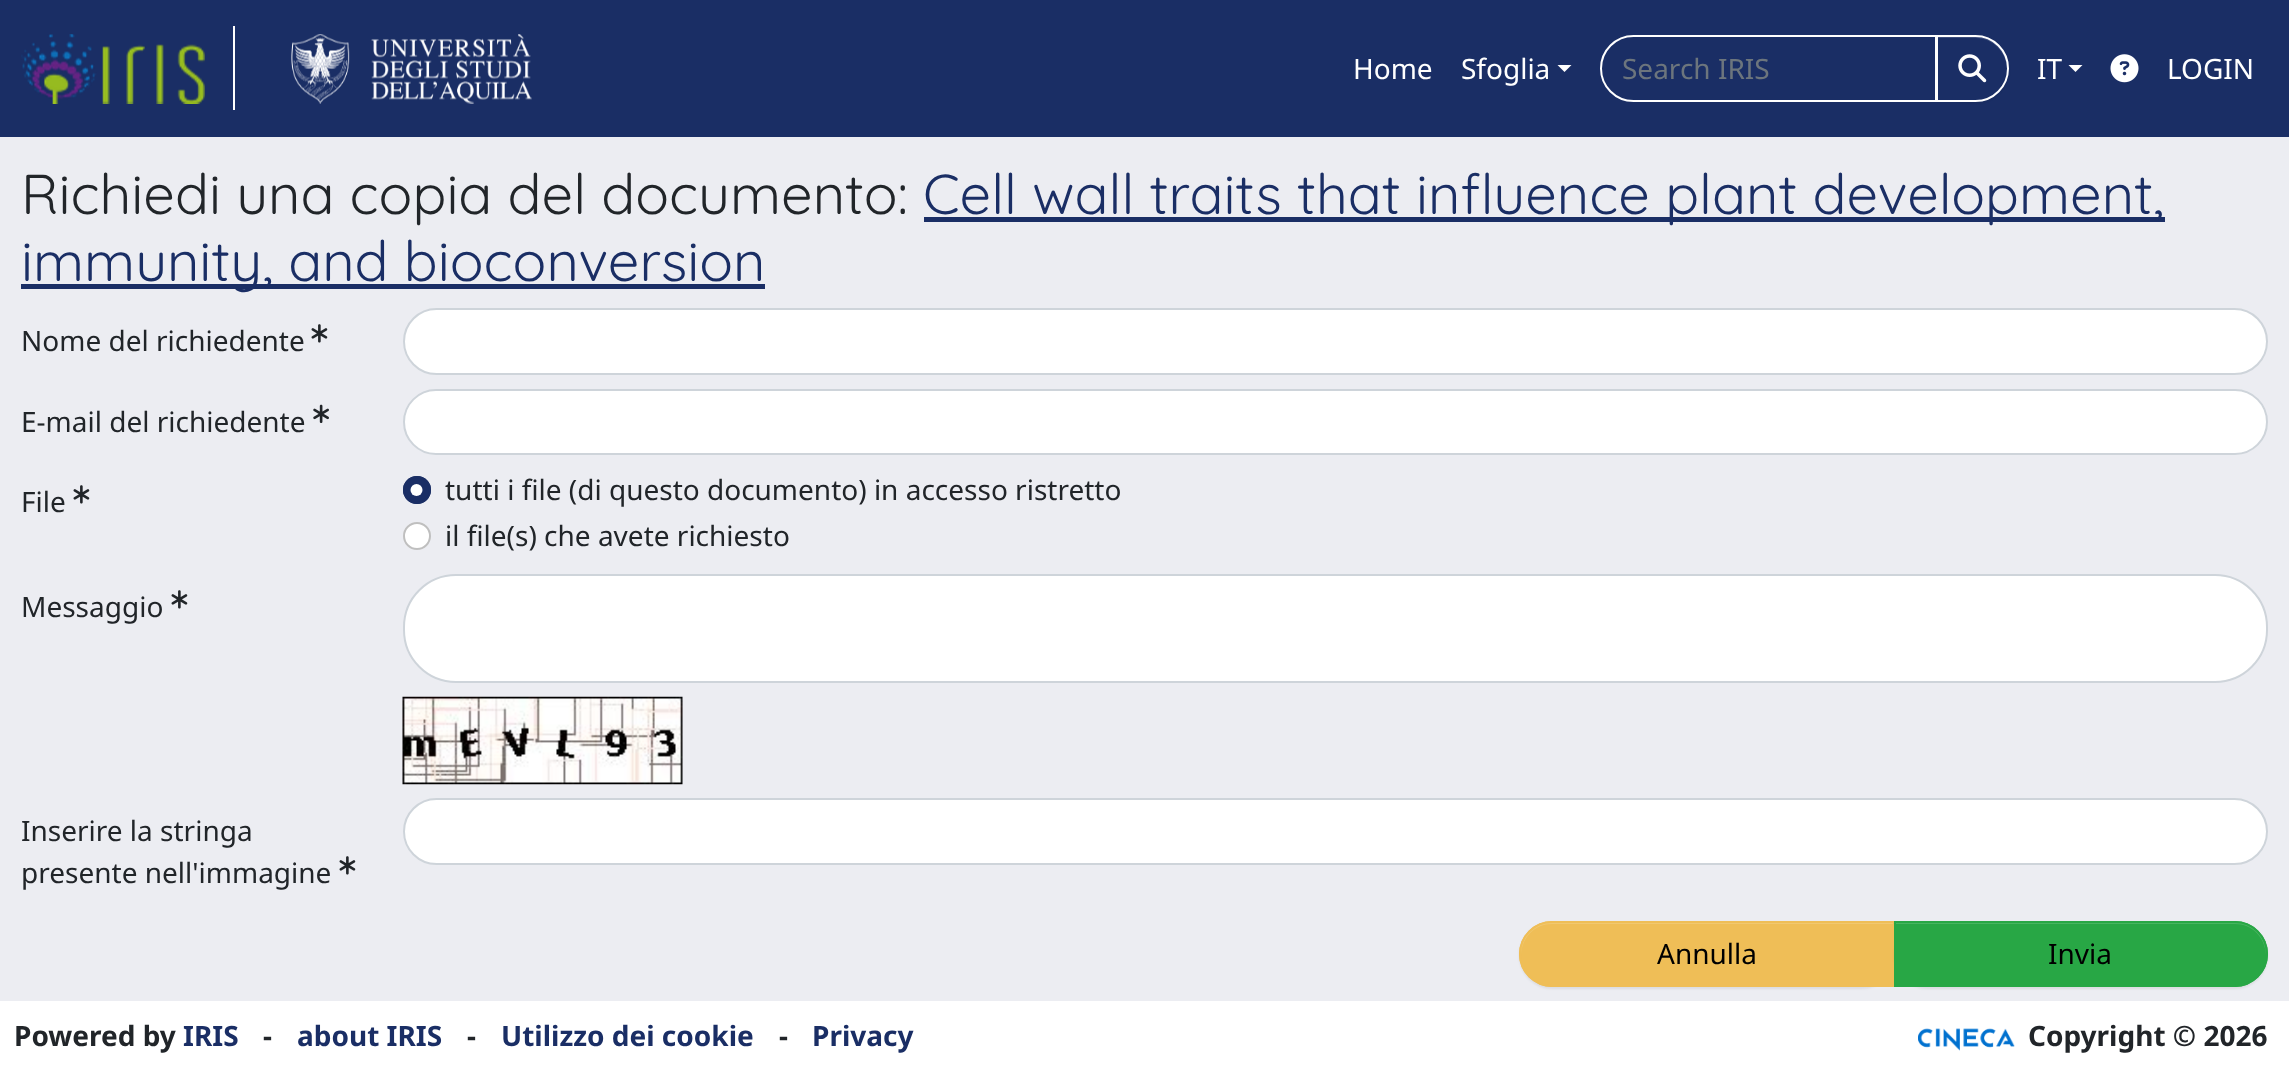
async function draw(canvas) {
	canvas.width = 2289;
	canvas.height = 1071;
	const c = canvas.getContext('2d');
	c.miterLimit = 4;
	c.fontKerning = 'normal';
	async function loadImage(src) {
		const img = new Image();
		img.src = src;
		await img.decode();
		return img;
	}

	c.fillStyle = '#ecedf2';
	c.fillRect(0, 0, 2289, 1071);
	c.fillStyle = '#1a2e65';
	c.fillRect(0, 0, 2289, 137);
	c.fillStyle = '#fff';
	c.fillRect(233, 26, 2, 84);
	c.drawImage(await loadImage('img1.png'), 21, 34, 184, 70);
	c.drawImage(await loadImage('img2.png'), 291, 34, 241, 70);
	c.font = '28px Noto Sans';
	c.fillText('Home', 1353, 79);
	c.fillText('Sfoglia', 1461, 79);
	c.beginPath();
	c.moveTo(1557.5, 65);
	c.lineTo(1571.5, 65);
	c.lineTo(1564.5, 72);
	c.closePath();
	c.fill();
	c.beginPath();
	c.roundRect(1601, 36, 335, 65, [32.5, 0, 0, 32.5]);
	c.strokeStyle = '#fff';
	c.lineWidth = 2;
	c.stroke();
	c.fillStyle = '#6c757d';
	c.fillText('Search IRIS', 1622, 79);
	c.fillStyle = '#00000012';
	c.filter = 'blur(1px)';
	c.beginPath();
	c.roundRect(1936, 37, 73, 66, 33);
	c.fill();
	c.filter = 'none';
	c.fillStyle = '#1a2e65';
	c.beginPath();
	c.roundRect(1936, 35, 73, 67, [0, 33.5, 33.5, 0]);
	c.fill();
	c.fillStyle = '#3c4d7c';
	c.beginPath();
	c.moveTo(1937, 38);
	c.lineTo(1976, 38);
	c.bezierCurveTo(1993, 38, 2007, 53, 2007, 69);
	c.lineTo(2007, 68);
	c.bezierCurveTo(2007, 51, 1993, 37, 1976, 37);
	c.lineTo(1937, 37);
	c.closePath();
	c.fill();
	c.beginPath();
	c.roundRect(1937, 36, 71, 65, [0, 32.5, 32.5, 0]);
	c.stroke();
	c.drawImage(await loadImage('img3.png'), 1958, 54, 29, 29);
	c.fillStyle = '#fff';
	c.fillText('IT', 2037, 79);
	c.beginPath();
	c.moveTo(2068.5, 65);
	c.lineTo(2082.5, 65);
	c.lineTo(2075.5, 72);
	c.closePath();
	c.fill();
	c.drawImage(await loadImage('img4.png'), 2110, 54, 29, 29);
	c.fillText('LOGIN', 2167, 79);
	c.font = '300 56px Quicksand';
	c.fillStyle = '#212529';
	c.fillText('Richiedi una copia del documento:', 21, 214);
	c.fillStyle = '#1a2e65';
	c.fillRect(924, 217, 1241, 5);
	c.fillText('Cell wall traits that influence plant development,', 923, 214);
	c.fillRect(21, 284, 744, 5);
	c.fillText('immunity, and bioconversion', 21, 281);
	c.font = '28px Noto Sans';
	c.fillStyle = '#212529';
	c.fillText('Nome del richiedente', 21, 351);
	c.drawImage(await loadImage('img5.png'), 311, 324, 17, 19);
	c.fillStyle = '#fff';
	c.beginPath();
	c.roundRect(404, 309, 1863, 65, 32.5);
	c.fill();
	c.strokeStyle = '#ced4da';
	c.stroke();
	c.fillStyle = '#212529';
	c.fillText('E-mail del richiedente', 21, 432);
	c.drawImage(await loadImage('img6.png'), 313, 404, 16, 19);
	c.fillStyle = '#fff';
	c.beginPath();
	c.roundRect(404, 390, 1863, 64, 32);
	c.fill();
	c.stroke();
	c.fillStyle = '#212529';
	c.fillText('File', 21, 512);
	c.drawImage(await loadImage('img5.png'), 73, 485, 17, 19);
	c.fillStyle = '#1a2e65';
	c.beginPath();
	c.arc(417, 490, 14, 0, 2 * Math.PI);
	c.fill();
	c.fillStyle = '#fff';
	c.beginPath();
	c.arc(416.5, 490, 6, 0, 2 * Math.PI);
	c.fill();
	c.beginPath();
	c.arc(417, 490, 13, 0, 2 * Math.PI);
	c.strokeStyle = '#1a2e65';
	c.stroke();
	c.fillStyle = '#212529';
	c.fillText('tutti i file (di questo documento) in accesso ristretto', 445, 500);
	c.fillStyle = '#fff';
	c.beginPath();
	c.arc(417, 536, 14, 0, 2 * Math.PI);
	c.fill();
	c.beginPath();
	c.arc(417, 536, 13, 0, 2 * Math.PI);
	c.strokeStyle = '#00000040';
	c.stroke();
	c.fillStyle = '#212529';
	c.fillText('il file(s) che avete richiesto', 445, 546);
	c.fillText('Messaggio', 21, 617);
	c.drawImage(await loadImage('img5.png'), 171, 590, 17, 19);
	c.fillStyle = '#fff';
	c.beginPath();
	c.roundRect(404, 575, 1863, 107, 52);
	c.fill();
	c.strokeStyle = '#ced4da';
	c.stroke();
	c.drawImage(await loadImage('img7.png'), 402, 696, 281, 89);
	c.fillStyle = '#212529';
	c.fillText('Inserire la stringa', 21, 841);
	c.fillText('presente nell\'immagine', 21, 883);
	c.drawImage(await loadImage('img5.png'), 339, 856, 17, 19);
	c.fillStyle = '#fff';
	c.beginPath();
	c.roundRect(404, 799, 1863, 65, 32.5);
	c.fill();
	c.stroke();
	c.fillStyle = '#00000012';
	c.filter = 'blur(1px)';
	c.beginPath();
	c.roundRect(1519, 922, 376, 67, 33.5);
	c.fill();
	c.filter = 'none';
	c.fillStyle = '#efbe57';
	c.beginPath();
	c.roundRect(1519, 921, 376, 66, [33, 0, 0, 33]);
	c.fill();
	c.fillStyle = '#f1c870';
	c.beginPath();
	c.moveTo(1552, 924);
	c.lineTo(1894, 924);
	c.lineTo(1894, 922);
	c.lineTo(1552, 922);
	c.bezierCurveTo(1535, 922, 1521, 936, 1521, 954);
	c.lineTo(1521, 955);
	c.bezierCurveTo(1522, 937, 1535, 924, 1552, 924);
	c.closePath();
	c.fill();
	c.beginPath();
	c.roundRect(1520, 922, 374, 64, [32, 0, 0, 32]);
	c.strokeStyle = '#efbe57';
	c.stroke();
	c.fillStyle = '#000';
	c.fillText('Annulla', 1657, 964);
	c.fillStyle = '#00000012';
	c.filter = 'blur(1px)';
	c.beginPath();
	c.roundRect(1894, 922, 374, 67, 33.5);
	c.fill();
	c.filter = 'none';
	c.fillStyle = '#28a745';
	c.beginPath();
	c.roundRect(1894, 921, 374, 66, [0, 33, 33, 0]);
	c.fill();
	c.fillStyle = '#48b461';
	c.beginPath();
	c.moveTo(1895, 924);
	c.lineTo(2235, 924);
	c.bezierCurveTo(2252, 924, 2265, 937, 2266, 955);
	c.lineTo(2266, 954);
	c.bezierCurveTo(2266, 936, 2252, 922, 2234, 922);
	c.lineTo(1895, 922);
	c.closePath();
	c.fill();
	c.beginPath();
	c.roundRect(1895, 922, 372, 64, [0, 32, 32, 0]);
	c.strokeStyle = '#28a745';
	c.stroke();
	c.fillStyle = '#000';
	c.fillText('Invia', 2048, 964);
	c.fillStyle = '#fff';
	c.fillRect(0, 1001, 2289, 70);
	c.font = 'bold 28px Noto Sans';
	c.fillStyle = '#212529';
	c.fillText('Powered by', 14, 1046);
	c.fillStyle = '#1a2e65';
	c.fillText('IRIS', 183, 1046);
	c.fillStyle = '#212529';
	c.fillText('-', 263, 1046);
	c.fillStyle = '#1a2e65';
	c.fillText('about IRIS', 297, 1046);
	c.fillStyle = '#212529';
	c.fillText('-', 467, 1046);
	c.fillStyle = '#1a2e65';
	c.fillText('Utilizzo dei cookie', 501, 1046);
	c.fillStyle = '#212529';
	c.fillText('-', 779, 1046);
	c.fillStyle = '#1a2e65';
	c.fillText('Privacy', 812, 1046);
	c.drawImage(await loadImage('img8.png'), 1918, 1028, 97, 23);
	c.fillStyle = '#212529';
	c.fillText('Copyright © 2026', 2028, 1046);
}

draw(document.querySelector('canvas'));
